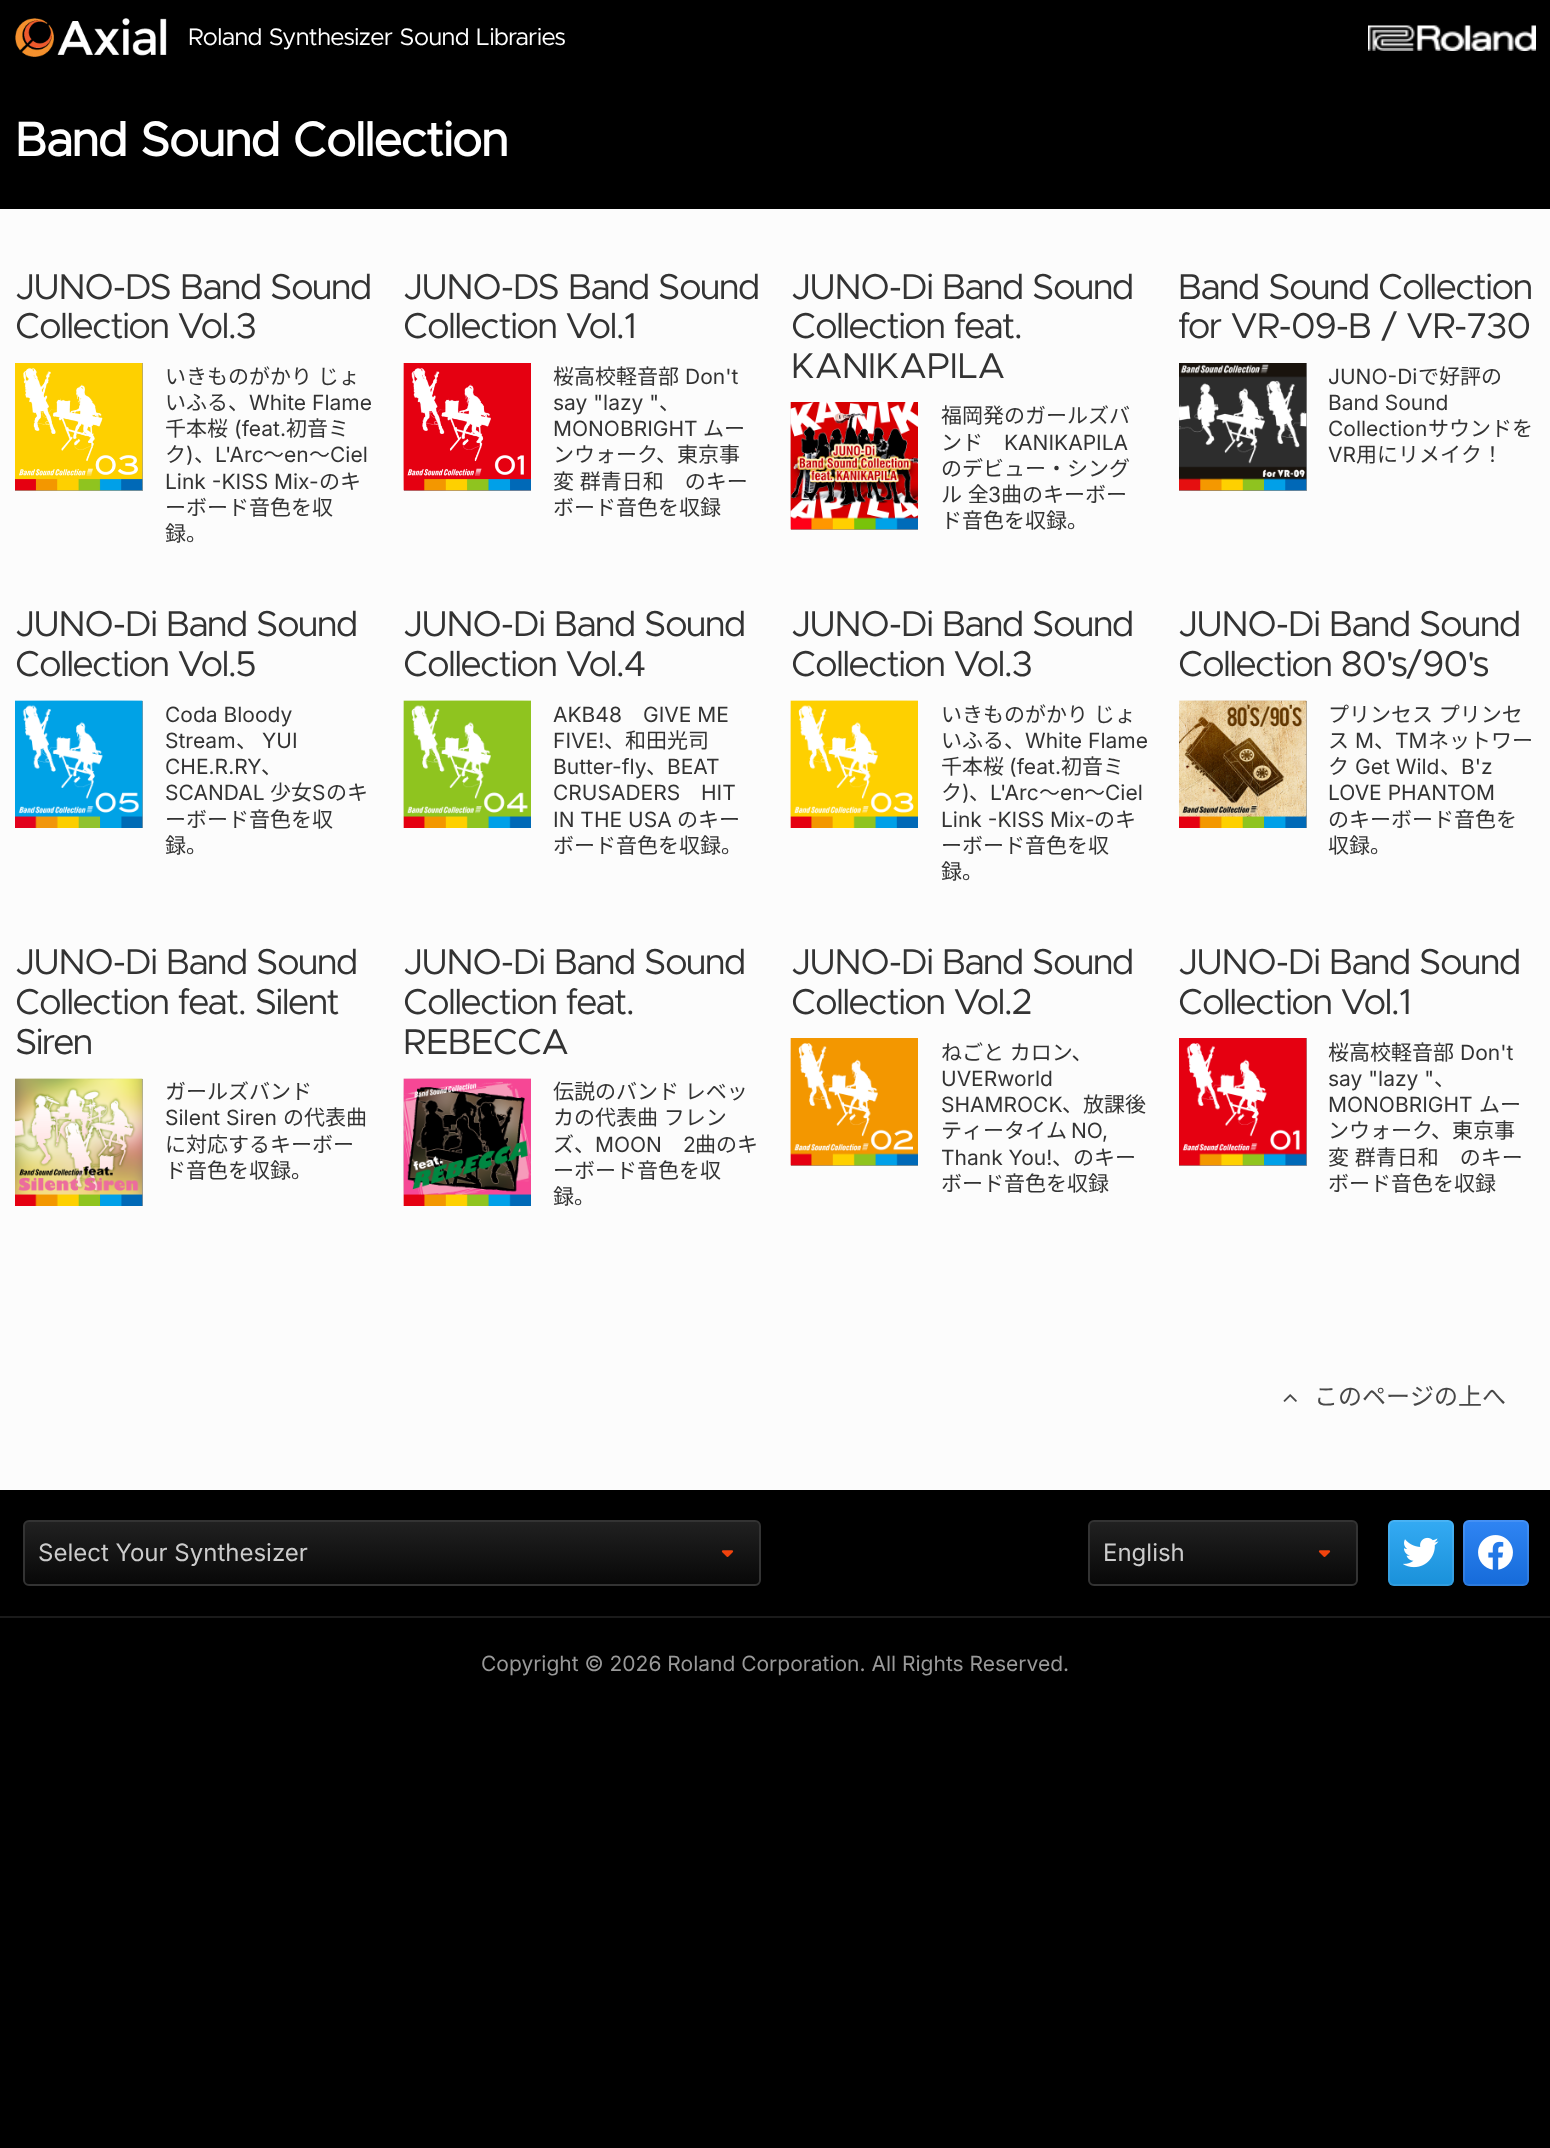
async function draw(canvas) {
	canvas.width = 1550;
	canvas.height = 2148;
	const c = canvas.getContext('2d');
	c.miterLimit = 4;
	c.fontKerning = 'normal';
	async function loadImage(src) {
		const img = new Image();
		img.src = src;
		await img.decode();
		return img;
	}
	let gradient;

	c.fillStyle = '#000';
	c.fillRect(0, 0, 1550, 2148);
	c.drawImage(await loadImage('img1.png'), 15, 18, 152, 39);
	c.font = '24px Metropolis';
	c.fillStyle = '#fff';
	c.fillText('Roland Synthesizer Sound Libraries', 188, 45);
	c.drawImage(await loadImage('img2.png'), 1368, 25, 168, 26);
	c.fillStyle = '#fcfcfc';
	c.fillRect(0, 209, 1550, 1281);
	c.font = 'bold 48px Metropolis';
	c.fillStyle = '#fff';
	c.fillText('Band Sound Collection', 15, 156);
	c.letterSpacing = '-0.75px';
	c.font = '36px Metropolis';
	c.fillStyle = '#333';
	c.fillText('JUNO-DS Band Sound', 15, 299);
	c.fillText('Collection Vol.3', 15, 338);
	c.fillStyle = '#999';
	c.fillRect(15, 363, 128, 128);
	c.drawImage(await loadImage('img3.png'), 15, 363, 128, 128);
	c.drawImage(await loadImage('img4.png'), 15, 363, 128, 128);
	c.letterSpacing = '0px';
	c.wordSpacing = '1px';
	c.font = '21px Noto Sans JP';
	c.fillStyle = '#333';
	c.fillText('いきものがかり じょ', 165, 384);
	c.wordSpacing = '0px';
	c.fillText('いふる、', 165, 410);
	c.font = '21px Inter';
	c.fillText('White Flame', 249, 410);
	c.font = '21px Noto Sans JP';
	c.fillText('千本桜', 165, 436);
	c.font = '21px Inter';
	c.fillText('(feat.', 234, 436);
	c.font = '21px Noto Sans JP';
	c.fillText('初音ミ', 286, 436);
	c.fillText('ク', 165, 462);
	c.font = '21px Inter';
	c.fillText(')', 186, 462);
	c.fillText('L\'Arc', 215, 462);
	c.font = '21px Noto Sans JP';
	c.fillText('～', 263, 462);
	c.font = '21px Inter';
	c.fillText('en', 284, 462);
	c.font = '21px Noto Sans JP';
	c.fillText('～', 309, 462);
	c.font = '21px Inter';
	c.fillText('Ciel', 330, 462);
	c.font = '21px Noto Sans JP';
	c.fillText('、', 194, 462);
	c.font = '21px Inter';
	c.fillText('Link -KISS Mix-', 165, 489);
	c.font = '21px Noto Sans JP';
	for (const [text, x, y] of [
		['のキ', 319, 489],
		['ーボード音色を収', 165, 515],
		['録。', 165, 541],
	]) {
		c.fillText(text, x, y);
	}
	c.letterSpacing = '-0.75px';
	c.font = '36px Metropolis';
	c.fillText('JUNO-DS Band Sound', 403, 299);
	c.fillText('Collection Vol.1', 403, 338);
	c.fillStyle = '#999';
	c.fillRect(404, 363, 127, 128);
	c.drawImage(await loadImage('img5.png'), 403, 363, 128, 128);
	c.drawImage(await loadImage('img6.png'), 403, 363, 128, 128);
	c.letterSpacing = '0px';
	c.font = '21px Noto Sans JP';
	c.fillStyle = '#333';
	c.fillText('桜高校軽音部', 553, 384);
	c.font = '21px Inter';
	c.fillText('Don\'t', 685, 384);
	c.fillText('say "lazy "', 553, 410);
	c.font = '21px Noto Sans JP';
	c.fillText('、', 659, 410);
	c.font = '21px Inter';
	c.fillText('MONOBRIGHT', 553, 436);
	c.font = '21px Noto Sans JP';
	c.fillText('ムー', 703, 436);
	c.fillText('ンウォーク、東京事', 553, 462);
	c.wordSpacing = '1px';
	c.fillText('変 群青日和　のキー', 553, 489);
	c.wordSpacing = '0px';
	c.fillText('ボード音色を収録', 553, 515);
	c.letterSpacing = '-0.75px';
	c.font = '36px Metropolis';
	for (const [text, x, y] of [
		['JUNO-Di Band Sound', 791, 299],
		['Collection feat.', 791, 338],
		['KANIKAPILA', 791, 378],
	]) {
		c.fillText(text, x, y);
	}
	c.fillStyle = '#999';
	c.fillRect(791, 529, 127, 1);
	c.drawImage(await loadImage('img7.png'), 790, 402, 128, 128);
	c.drawImage(await loadImage('img8.png'), 790, 402, 128, 128);
	c.letterSpacing = '0px';
	c.font = '21px Noto Sans JP';
	c.fillStyle = '#333';
	c.fillText('福岡発のガールズバ', 941, 423);
	c.fillText('ンド', 941, 450);
	c.font = '21px Inter';
	c.fillText('KANIKAPILA', 1004, 450);
	c.font = '21px Noto Sans JP';
	c.fillText('のデビュー・シング', 941, 476);
	c.wordSpacing = '1px';
	c.fillText('ル 全', 941, 502);
	c.wordSpacing = '0px';
	c.font = '21px Inter';
	c.fillText('3', 988, 502);
	c.font = '21px Noto Sans JP';
	c.fillText('曲のキーボー', 1001, 502);
	c.fillText('ド音色を収録。', 941, 528);
	c.letterSpacing = '-0.75px';
	c.font = '36px Metropolis';
	c.fillText('Band Sound Collection', 1178, 299);
	c.fillText('for VR-09-B / VR-730', 1178, 338);
	c.fillStyle = '#999';
	c.fillRect(1179, 363, 128, 128);
	c.drawImage(await loadImage('img9.png'), 1179, 363, 128, 128);
	c.drawImage(await loadImage('img10.png'), 1179, 363, 128, 128);
	c.letterSpacing = '0px';
	c.font = '21px Inter';
	c.fillStyle = '#333';
	c.fillText('JUNO-Di', 1328, 384);
	c.font = '21px Noto Sans JP';
	c.fillText('で好評の', 1418, 384);
	c.font = '21px Inter';
	c.fillText('Band Sound', 1328, 410);
	c.fillText('Collection', 1328, 436);
	c.font = '21px Noto Sans JP';
	c.fillText('サウンドを', 1428, 436);
	c.font = '21px Inter';
	c.fillText('VR', 1328, 462);
	c.font = '21px Noto Sans JP';
	c.fillText('用にリメイク！', 1356, 462);
	c.letterSpacing = '-0.75px';
	c.font = '36px Metropolis';
	c.fillText('JUNO-Di Band Sound', 15, 636);
	c.fillText('Collection Vol.5', 15, 676);
	c.fillStyle = '#999';
	c.fillRect(142, 701, 1, 127);
	c.drawImage(await loadImage('img11.png'), 15, 700, 128, 128);
	c.drawImage(await loadImage('img12.png'), 15, 700, 128, 128);
	c.letterSpacing = '0px';
	c.font = '21px Inter';
	c.fillStyle = '#333';
	c.fillText('Coda Bloody', 165, 722);
	c.fillText('Stream', 165, 748);
	c.font = '21px Noto Sans JP';
	c.fillText('、', 236, 748);
	c.font = '21px Inter';
	c.fillText('YUI', 262, 748);
	c.fillText('CHE.R.RY', 165, 774);
	c.font = '21px Noto Sans JP';
	c.fillText('、', 261, 774);
	c.font = '21px Inter';
	c.fillText('SCANDAL', 165, 800);
	c.font = '21px Noto Sans JP';
	c.fillText('少女', 270, 800);
	c.font = '21px Inter';
	c.fillText('S', 312, 800);
	c.font = '21px Noto Sans JP';
	for (const [text, x, y] of [
		['のキ', 326, 800],
		['ーボード音色を収', 165, 827],
		['録。', 165, 853],
	]) {
		c.fillText(text, x, y);
	}
	c.letterSpacing = '-0.75px';
	c.font = '36px Metropolis';
	c.fillText('JUNO-Di Band Sound', 403, 636);
	c.fillText('Collection Vol.4', 403, 676);
	c.drawImage(await loadImage('img13.png'), 403, 700, 128, 128);
	c.drawImage(await loadImage('img14.png'), 403, 700, 128, 128);
	c.letterSpacing = '0px';
	c.font = '21px Inter';
	for (const [text, x, y] of [
		['AKB48', 553, 722],
		['GIVE ME', 643, 722],
		['FIVE!', 553, 748],
	]) {
		c.fillText(text, x, y);
	}
	c.font = '21px Noto Sans JP';
	c.fillText('、和田光司', 604, 748);
	c.font = '21px Inter';
	c.fillText('Butter-fly', 553, 774);
	c.font = '21px Noto Sans JP';
	c.fillText('、', 646, 774);
	c.font = '21px Inter';
	for (const [text, x, y] of [
		['BEAT', 667, 774],
		['CRUSADERS', 553, 800],
		['HIT', 701, 800],
		['IN THE USA', 553, 827],
	]) {
		c.fillText(text, x, y);
	}
	c.font = '21px Noto Sans JP';
	c.fillText('のキー', 677, 827);
	c.fillText('ボード音色を収録。', 553, 853);
	c.letterSpacing = '-0.75px';
	c.font = '36px Metropolis';
	c.fillText('JUNO-Di Band Sound', 791, 636);
	c.fillText('Collection Vol.3', 791, 676);
	c.drawImage(await loadImage('img15.png'), 790, 700, 128, 128);
	c.drawImage(await loadImage('img16.png'), 790, 700, 128, 128);
	c.letterSpacing = '0px';
	c.wordSpacing = '1px';
	c.font = '21px Noto Sans JP';
	c.fillText('いきものがかり じょ', 941, 722);
	c.wordSpacing = '0px';
	c.fillText('いふる、', 941, 748);
	c.font = '21px Inter';
	c.fillText('White Flame', 1025, 748);
	c.font = '21px Noto Sans JP';
	c.fillText('千本桜', 941, 774);
	c.font = '21px Inter';
	c.fillText('(feat.', 1009, 774);
	c.font = '21px Noto Sans JP';
	c.fillText('初音ミ', 1061, 774);
	c.fillText('ク', 941, 800);
	c.font = '21px Inter';
	c.fillText(')', 962, 800);
	c.fillText('L\'Arc', 990, 800);
	c.font = '21px Noto Sans JP';
	c.fillText('～', 1039, 800);
	c.font = '21px Inter';
	c.fillText('en', 1060, 800);
	c.font = '21px Noto Sans JP';
	c.fillText('～', 1084, 800);
	c.font = '21px Inter';
	c.fillText('Ciel', 1105, 800);
	c.font = '21px Noto Sans JP';
	c.fillText('、', 969, 800);
	c.font = '21px Inter';
	c.fillText('Link -KISS Mix-', 941, 827);
	c.font = '21px Noto Sans JP';
	for (const [text, x, y] of [
		['のキ', 1094, 827],
		['ーボード音色を収', 941, 853],
		['録。', 941, 879],
	]) {
		c.fillText(text, x, y);
	}
	c.letterSpacing = '-0.75px';
	c.font = '36px Metropolis';
	c.fillText('JUNO-Di Band Sound', 1178, 636);
	c.fillText('Collection 80\'s/90\'s', 1178, 676);
	c.fillStyle = '#999';
	c.fillRect(1306, 701, 1, 127);
	c.drawImage(await loadImage('img17.png'), 1179, 700, 128, 128);
	c.drawImage(await loadImage('img18.png'), 1179, 700, 128, 128);
	c.letterSpacing = '0px';
	c.wordSpacing = '1px';
	c.font = '21px Noto Sans JP';
	c.fillStyle = '#333';
	c.fillText('プリンセス プリンセ', 1328, 722);
	c.wordSpacing = '0px';
	c.fillText('ス', 1328, 748);
	c.font = '21px Inter';
	c.fillText('M', 1355, 748);
	c.font = '21px Noto Sans JP';
	c.fillText('、', 1374, 748);
	c.font = '21px Inter';
	c.fillText('TM', 1395, 748);
	c.font = '21px Noto Sans JP';
	c.fillText('ネットワー', 1428, 748);
	c.fillText('ク', 1328, 774);
	c.font = '21px Inter';
	c.fillText('Get Wild', 1355, 774);
	c.font = '21px Noto Sans JP';
	c.fillText('、', 1440, 774);
	c.font = '21px Inter';
	c.fillText('B\'z', 1461, 774);
	c.fillText('LOVE PHANTOM', 1328, 800);
	c.font = '21px Noto Sans JP';
	c.fillText('のキーボード音色を', 1328, 827);
	c.fillText('収録。', 1328, 853);
	c.letterSpacing = '-0.75px';
	c.font = '36px Metropolis';
	for (const [text, x, y] of [
		['JUNO-Di Band Sound', 15, 974],
		['Collection feat. Silent', 15, 1014],
		['Siren', 15, 1054],
	]) {
		c.fillText(text, x, y);
	}
	c.fillStyle = '#999';
	c.fillRect(142, 1079, 1, 127);
	c.drawImage(await loadImage('img19.png'), 15, 1078, 128, 128);
	c.drawImage(await loadImage('img20.png'), 15, 1078, 128, 128);
	c.letterSpacing = '0px';
	c.font = '21px Noto Sans JP';
	c.fillStyle = '#333';
	c.fillText('ガールズバンド', 165, 1099);
	c.font = '21px Inter';
	c.fillText('Silent Siren', 165, 1125);
	c.font = '21px Noto Sans JP';
	for (const [text, x, y] of [
		['の代表曲', 283, 1125],
		['に対応するキーボー', 165, 1152],
		['ド音色を収録。', 165, 1178],
	]) {
		c.fillText(text, x, y);
	}
	c.letterSpacing = '-0.75px';
	c.font = '36px Metropolis';
	for (const [text, x, y] of [
		['JUNO-Di Band Sound', 403, 974],
		['Collection feat.', 403, 1014],
		['REBECCA', 403, 1054],
	]) {
		c.fillText(text, x, y);
	}
	c.drawImage(await loadImage('img21.png'), 403, 1078, 128, 128);
	c.drawImage(await loadImage('img22.png'), 403, 1078, 128, 128);
	c.letterSpacing = '0px';
	c.wordSpacing = '1px';
	c.font = '21px Noto Sans JP';
	c.fillText('伝説のバンド レベッ', 553, 1099);
	c.fillText('カの代表曲 フレン', 553, 1125);
	c.wordSpacing = '0px';
	c.fillText('ズ、', 553, 1152);
	c.font = '21px Inter';
	c.fillText('MOON', 595, 1152);
	c.fillText('2', 683, 1152);
	c.font = '21px Noto Sans JP';
	for (const [text, x, y] of [
		['曲のキ', 695, 1152],
		['ーボード音色を収', 553, 1178],
		['録。', 553, 1204],
	]) {
		c.fillText(text, x, y);
	}
	c.letterSpacing = '-0.75px';
	c.font = '36px Metropolis';
	c.fillText('JUNO-Di Band Sound', 791, 974);
	c.fillText('Collection Vol.2', 791, 1014);
	c.fillStyle = '#999';
	c.fillRect(791, 1038, 127, 128);
	c.drawImage(await loadImage('img23.png'), 790, 1038, 128, 128);
	c.drawImage(await loadImage('img24.png'), 790, 1038, 128, 128);
	c.letterSpacing = '0px';
	c.wordSpacing = '1px';
	c.font = '21px Noto Sans JP';
	c.fillStyle = '#333';
	c.fillText('ねごと カロン、', 941, 1060);
	c.wordSpacing = '0px';
	c.font = '21px Inter';
	c.fillText('UVERworld', 941, 1086);
	c.fillText('SHAMROCK', 941, 1112);
	c.font = '21px Noto Sans JP';
	c.fillText('、放課後', 1062, 1112);
	c.fillText('ティータイム', 941, 1138);
	c.font = '21px Inter';
	c.fillText('NO,', 1071, 1138);
	c.fillText('Thank You!', 941, 1165);
	c.font = '21px Noto Sans JP';
	c.fillText('、のキー', 1052, 1165);
	c.fillText('ボード音色を収録', 941, 1191);
	c.letterSpacing = '-0.75px';
	c.font = '36px Metropolis';
	c.fillText('JUNO-Di Band Sound', 1178, 974);
	c.fillText('Collection Vol.1', 1178, 1014);
	c.fillStyle = '#999';
	c.fillRect(1179, 1038, 128, 128);
	c.drawImage(await loadImage('img25.png'), 1179, 1038, 128, 128);
	c.drawImage(await loadImage('img26.png'), 1179, 1038, 128, 128);
	c.letterSpacing = '0px';
	c.font = '21px Noto Sans JP';
	c.fillStyle = '#333';
	c.fillText('桜高校軽音部', 1328, 1060);
	c.font = '21px Inter';
	c.fillText('Don\'t', 1460, 1060);
	c.fillText('say "lazy "', 1328, 1086);
	c.font = '21px Noto Sans JP';
	c.fillText('、', 1434, 1086);
	c.font = '21px Inter';
	c.fillText('MONOBRIGHT', 1328, 1112);
	c.font = '21px Noto Sans JP';
	c.fillText('ムー', 1479, 1112);
	c.fillText('ンウォーク、東京事', 1328, 1138);
	c.wordSpacing = '1px';
	c.fillText('変 群青日和　のキー', 1328, 1165);
	c.wordSpacing = '0px';
	c.fillText('ボード音色を収録', 1328, 1191);
	c.drawImage(await loadImage('img27.png'), 1283, 1394, 14, 8);
	c.font = '24px Noto Sans JP';
	c.fillStyle = '#484848';
	c.fillText('このページの上へ', 1314, 1405);
	c.fillStyle = '#080808';
	c.beginPath();
	c.roundRect(23, 1520, 738, 66, 6);
	c.fill();
	c.drawImage(await loadImage('img28.png'), 721, 1550, 13, 7);
	gradient = c.createLinearGradient(368, 1520, 368, 1586);
	gradient.addColorStop(0, '#ffffff1a');
	gradient.addColorStop(1, '#0000001a');
	c.fillStyle = gradient;
	c.beginPath();
	c.roundRect(24, 1521, 736, 64, 5);
	c.fill();
	c.strokeStyle = '#333';
	c.lineWidth = 2;
	c.stroke();
	c.font = '24px Inter';
	c.fillStyle = '#ccc';
	c.fillText('Select Your Synthesizer', 38, 1561);
	c.fillStyle = '#080808';
	c.beginPath();
	c.roundRect(1088, 1520, 270, 66, 6);
	c.fill();
	c.drawImage(await loadImage('img28.png'), 1318, 1550, 13, 7);
	gradient = c.createLinearGradient(1199, 1520, 1199, 1586);
	gradient.addColorStop(0, '#ffffff1a');
	gradient.addColorStop(1, '#0000001a');
	c.fillStyle = gradient;
	c.beginPath();
	c.roundRect(1089, 1521, 268, 64, 5);
	c.fill();
	c.stroke();
	c.fillStyle = '#ccc';
	c.fillText('English', 1103, 1561);
	c.fillStyle = '#1da1f2';
	c.beginPath();
	c.roundRect(1388, 1520, 66, 66, 6);
	c.fill();
	gradient = c.createLinearGradient(1421, 1520, 1421, 1586);
	gradient.addColorStop(0, '#ffffff1a');
	gradient.addColorStop(1, '#0000001a');
	c.fillStyle = gradient;
	c.beginPath();
	c.roundRect(1388, 1520, 66, 66, 6);
	c.fill();
	c.beginPath();
	c.roundRect(1389, 1521, 64, 64, 5);
	c.strokeStyle = '#ffffff1a';
	c.stroke();
	c.drawImage(await loadImage('img29.png'), 1403, 1537, 36, 31);
	c.fillStyle = '#1877f2';
	c.beginPath();
	c.roundRect(1463, 1520, 66, 66, 6);
	c.fill();
	gradient = c.createLinearGradient(1496, 1520, 1496, 1586);
	gradient.addColorStop(0, '#ffffff1a');
	gradient.addColorStop(1, '#0000001a');
	c.fillStyle = gradient;
	c.beginPath();
	c.roundRect(1463, 1520, 66, 66, 6);
	c.fill();
	c.beginPath();
	c.roundRect(1464, 1521, 64, 64, 5);
	c.stroke();
	c.drawImage(await loadImage('img30.png'), 1478, 1535, 35, 35);
	c.fillStyle = '#1a1a1a';
	c.fillRect(0, 1616, 1550, 2);
	c.font = '21px Inter';
	c.fillStyle = '#999';
	c.fillText('Copyright © 2026 Roland Corporation. All Rights Reserved.', 481, 1671);
}

draw(document.querySelector('canvas'));
